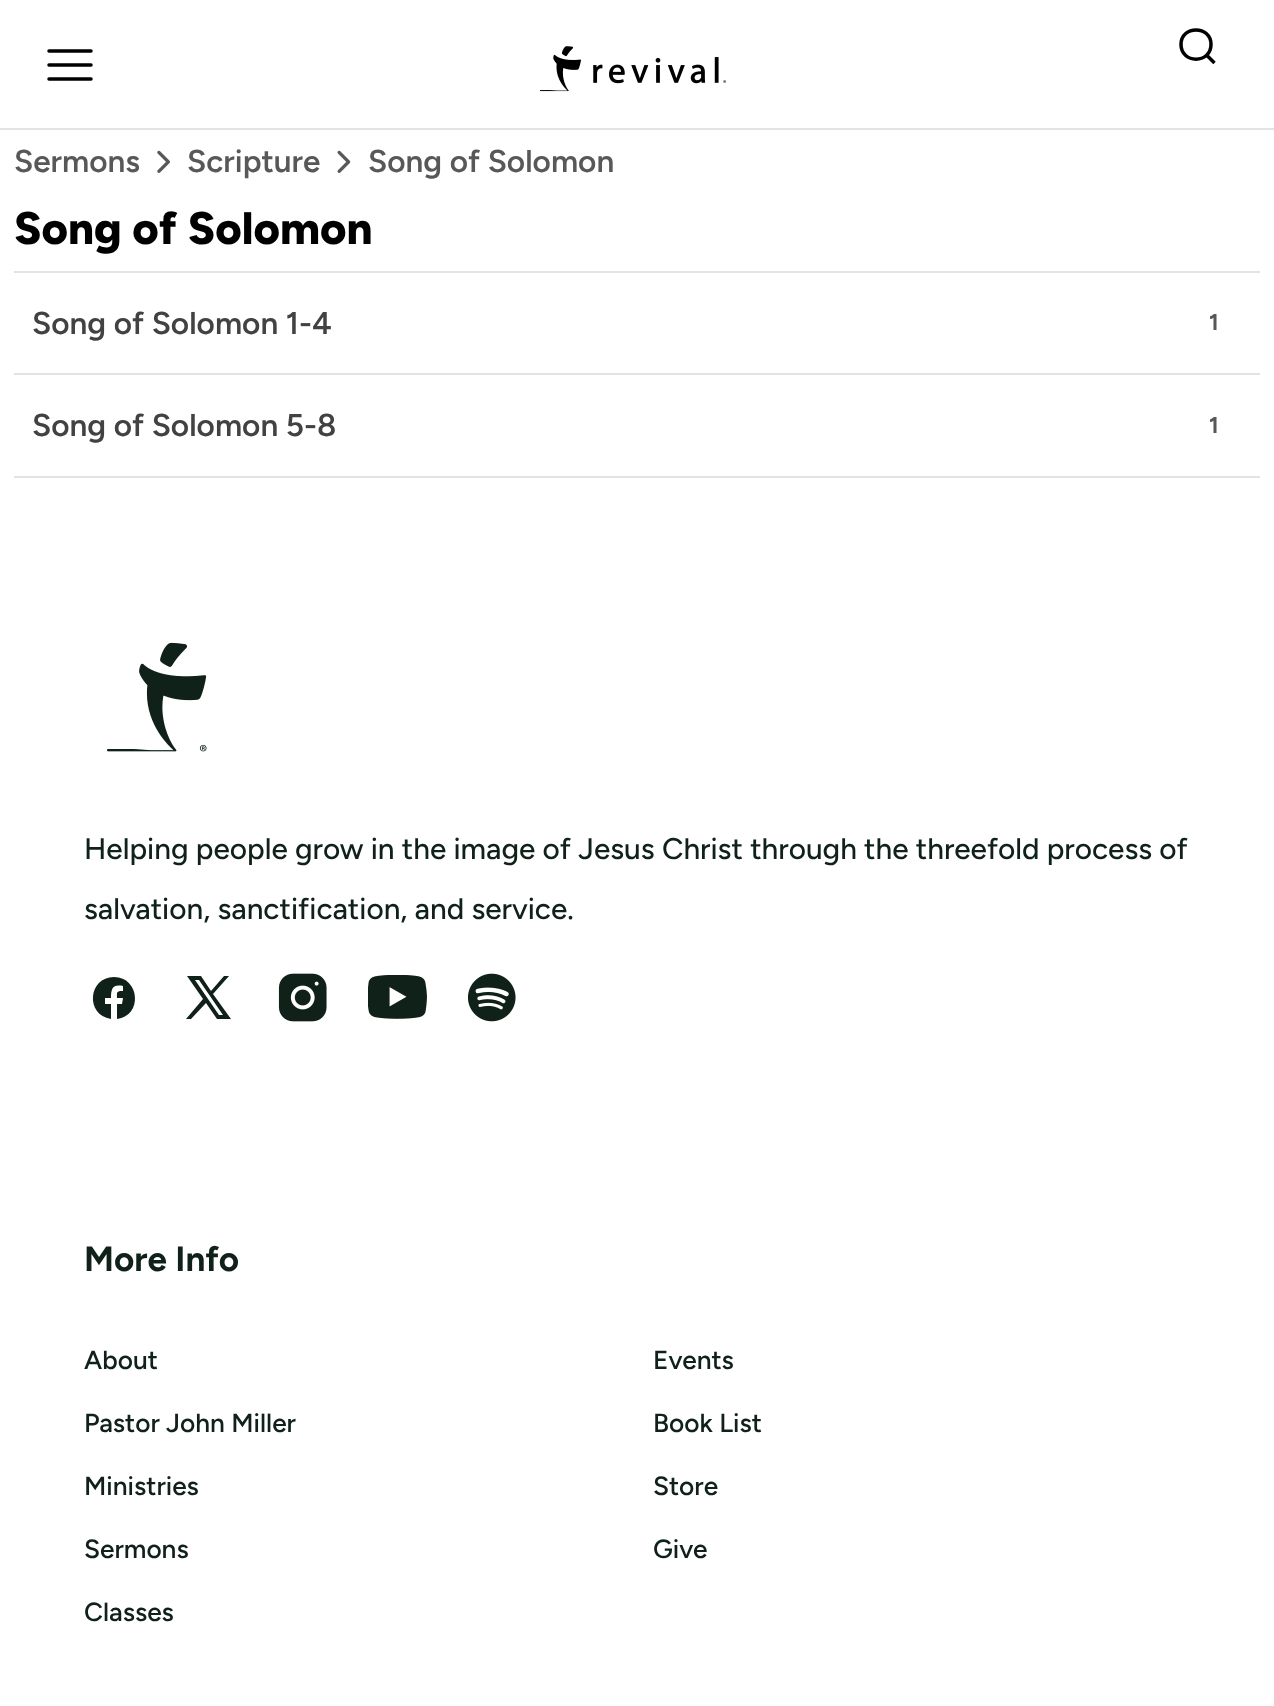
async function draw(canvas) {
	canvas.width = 1274;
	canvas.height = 1706;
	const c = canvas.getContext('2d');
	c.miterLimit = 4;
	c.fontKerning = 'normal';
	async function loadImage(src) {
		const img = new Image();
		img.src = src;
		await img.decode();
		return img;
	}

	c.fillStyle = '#fff';
	c.fillRect(0, 0, 1274, 1706);
	c.fillStyle = '#e1e4e7';
	c.fillRect(0, 128, 1274, 2);
	c.beginPath();
	c.moveTo(49, 51);
	c.lineTo(91, 51);
	c.moveTo(49, 65);
	c.lineTo(91, 65);
	c.moveTo(49, 79);
	c.lineTo(91, 79);
	c.strokeStyle = '#000';
	c.lineWidth = 3.5;
	c.lineCap = 'round';
	c.stroke();
	c.drawImage(await loadImage('img1.png'), 540, 46, 186, 46);
	c.beginPath();
	c.moveTo(1214.5, 63);
	c.lineTo(1206.5, 55);
	c.closePath();
	c.moveTo(1211, 44.5);
	c.bezierCurveTo(1211, 64, 1181, 64, 1181, 44.5);
	c.bezierCurveTo(1181, 25, 1211, 25, 1211, 44.5);
	c.closePath();
	c.stroke();
	c.font = '600 31.5px Figtree';
	c.fillStyle = '#585858';
	c.fillText('Sermons', 14, 172);
	c.drawImage(await loadImage('img2.png'), 157, 150, 13, 23);
	c.fillText('Scripture', 187, 172);
	c.drawImage(await loadImage('img3.png'), 337, 150, 14, 23);
	c.fillText('Song of Solomon', 368, 172);
	c.font = '800 45.5px Figtree';
	c.fillStyle = '#000';
	c.fillText('Song of Solomon', 14, 244);
	c.fillStyle = '#e1e4e7';
	c.fillRect(14, 271, 1246, 2);
	c.fillRect(14, 373, 1246, 2);
	c.font = '600 31.5px Figtree';
	c.fillStyle = '#424242';
	c.fillText('Song of Solomon 1-4', 32, 334);
	c.letterSpacing = '1px';
	c.font = 'bold 23px Figtree';
	c.fillStyle = '#585858';
	c.fillText('1', 1209, 330);
	c.fillStyle = '#e1e4e7';
	c.fillRect(14, 476, 1246, 2);
	c.letterSpacing = '0px';
	c.font = '600 31.5px Figtree';
	c.fillStyle = '#424242';
	c.fillText('Song of Solomon 5-8', 32, 436);
	c.letterSpacing = '1px';
	c.font = 'bold 23px Figtree';
	c.fillStyle = '#585858';
	c.fillText('1', 1209, 433);
	c.drawImage(await loadImage('img4.png'), 107, 642, 100, 110);
	c.letterSpacing = '0px';
	c.font = '500 29.75px Figtree';
	c.fillStyle = '#102119';
	c.fillText('Helping people grow in the image of Jesus Christ through the threefold process of', 84, 859);
	c.fillText('salvation, sanctification, and service.', 84, 919);
	c.beginPath();
	c.moveTo(114, 977);
	c.bezierCurveTo(88, 977, 85, 1015, 111, 1019);
	c.lineTo(111, 1004);
	c.lineTo(105, 1004);
	c.lineTo(105, 998);
	c.lineTo(111, 998);
	c.bezierCurveTo(111, 988, 113, 984, 123, 986);
	c.lineTo(123, 991);
	c.bezierCurveTo(116, 991, 117, 992, 117, 998);
	c.lineTo(123, 998);
	c.lineTo(122, 1004);
	c.lineTo(117, 1004);
	c.lineTo(117, 1019);
	c.bezierCurveTo(143, 1016, 140, 977, 114, 977);
	c.closePath();
	c.fill();
	c.beginPath();
	c.moveTo(231, 1019);
	c.lineTo(213, 994);
	c.lineTo(229, 976);
	c.lineTo(224, 976);
	c.lineTo(211, 991);
	c.lineTo(201, 976);
	c.lineTo(187, 976);
	c.lineTo(203, 999);
	c.lineTo(186, 1019);
	c.lineTo(191, 1019);
	c.lineTo(206, 1003);
	c.lineTo(217, 1019);
	c.closePath();
	c.moveTo(199, 980);
	c.lineTo(223, 1015);
	c.lineTo(219, 1015);
	c.lineTo(195, 980);
	c.closePath();
	c.fill();
	c.drawImage(await loadImage('img5.png'), 278, 973, 49, 49);
	c.drawImage(await loadImage('img6.png'), 368, 975, 59, 44);
	c.drawImage(await loadImage('img7.png'), 467, 973, 49, 49);
	c.font = 'bold 35px Figtree';
	c.fillText('More Info', 84, 1271);
	c.font = '500 26.25px "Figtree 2"';
	for (const [text, x, y] of [
		['About', 84, 1369],
		['Events', 653, 1369],
		['Pastor John Miller', 84, 1432],
		['Book List', 653, 1432],
		['Ministries', 84, 1495],
		['Store', 653, 1495],
		['Sermons', 84, 1558],
		['Give', 653, 1558],
		['Classes', 84, 1621],
	]) {
		c.fillText(text, x, y);
	}
}

draw(document.querySelector('canvas'));
